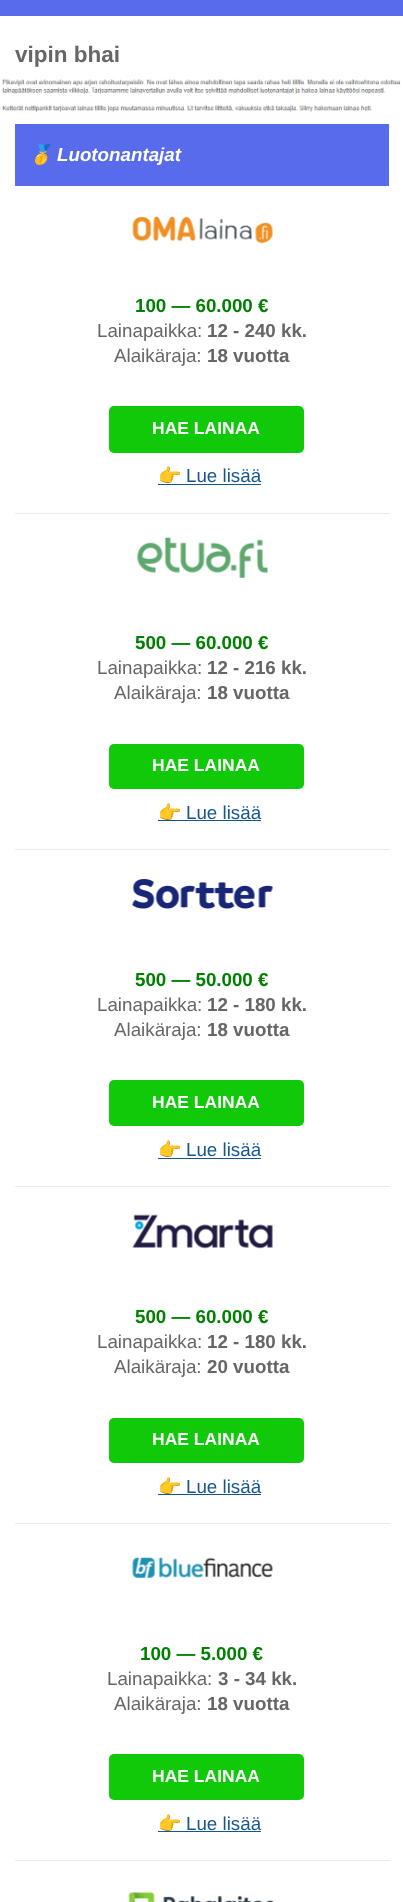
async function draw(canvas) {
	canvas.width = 403;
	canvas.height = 1902;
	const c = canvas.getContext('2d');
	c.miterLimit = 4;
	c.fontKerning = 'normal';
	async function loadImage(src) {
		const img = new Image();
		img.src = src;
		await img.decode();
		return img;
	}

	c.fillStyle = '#fff';
	c.fillRect(0, 0, 403, 1902);
	c.fillStyle = '#586bea';
	c.fillRect(0, 0, 403, 16);
	c.font = 'bold 22.5px Liberation Sans';
	c.fillStyle = '#666';
	c.fillText('vipin bhai', 15, 62);
	c.drawImage(await loadImage('img1.png'), 2, 79, 399, 34);
	c.fillStyle = '#586bea';
	c.fillRect(15, 124, 374, 62);
	c.font = 'italic bold 18.75px Noto Color Emoji';
	c.fillStyle = '#fff';
	c.fillText('🥇', 29, 161);
	c.font = 'italic bold 18.75px Liberation Sans';
	c.fillText('Luotonantajat', 57, 161);
	c.fillStyle = '#e6ebed';
	c.fillRect(15, 513, 375, 1);
	c.drawImage(await loadImage('img2.png'), 132, 216, 141, 28);
	c.font = 'bold 18.75px Liberation Sans';
	c.fillStyle = '#008000';
	c.fillText('100 — 60.000 €', 135, 312);
	c.font = '18.75px Liberation Sans';
	c.fillStyle = '#666';
	c.fillText('Lainapaikka:', 97, 337);
	c.font = 'bold 18.75px Liberation Sans';
	c.fillText('12 - 240 kk.', 207, 337);
	c.font = '18.75px Liberation Sans';
	c.fillText('Alaikäraja:', 114, 362);
	c.font = 'bold 18.75px Liberation Sans';
	c.fillText('18 vuotta', 207, 362);
	c.fillStyle = '#10c909';
	c.beginPath();
	c.roundRect(109, 406, 195, 47, 5);
	c.fill();
	c.font = 'bold 17.5px Liberation Sans';
	c.fillStyle = '#fff';
	c.fillText('HAE LAINAA', 152, 434);
	c.fillStyle = '#155592';
	c.fillRect(158, 484, 103, 1);
	c.font = '18.75px Noto Color Emoji';
	c.fillText('👉', 158, 482);
	c.font = '18.75px Liberation Sans';
	c.fillText('Lue lisää', 186, 482);
	c.fillStyle = '#e6ebed';
	c.fillRect(15, 849, 375, 1);
	c.drawImage(await loadImage('img3.png'), 137, 537, 131, 41);
	c.font = 'bold 18.75px Liberation Sans';
	c.fillStyle = '#008000';
	c.fillText('500 — 60.000 €', 135, 649);
	c.font = '18.75px Liberation Sans';
	c.fillStyle = '#666';
	c.fillText('Lainapaikka:', 97, 674);
	c.font = 'bold 18.75px Liberation Sans';
	c.fillText('12 - 216 kk.', 207, 674);
	c.font = '18.75px Liberation Sans';
	c.fillText('Alaikäraja:', 114, 699);
	c.font = 'bold 18.75px Liberation Sans';
	c.fillText('18 vuotta', 207, 699);
	c.fillStyle = '#10c909';
	c.beginPath();
	c.roundRect(109, 744, 195, 45, 5);
	c.fill();
	c.font = 'bold 17.5px Liberation Sans';
	c.fillStyle = '#fff';
	c.fillText('HAE LAINAA', 152, 771);
	c.fillStyle = '#155592';
	c.fillRect(158, 820, 103, 1);
	c.font = '18.75px Noto Color Emoji';
	c.fillText('👉', 158, 819);
	c.font = '18.75px Liberation Sans';
	c.fillText('Lue lisää', 186, 819);
	c.fillStyle = '#e6ebed';
	c.fillRect(15, 1186, 375, 1);
	c.drawImage(await loadImage('img4.png'), 132, 879, 141, 30);
	c.font = 'bold 18.75px Liberation Sans';
	c.fillStyle = '#008000';
	c.fillText('500 — 50.000 €', 135, 986);
	c.font = '18.75px Liberation Sans';
	c.fillStyle = '#666';
	c.fillText('Lainapaikka:', 97, 1011);
	c.font = 'bold 18.75px Liberation Sans';
	c.fillText('12 - 180 kk.', 207, 1011);
	c.font = '18.75px Liberation Sans';
	c.fillText('Alaikäraja:', 114, 1036);
	c.font = 'bold 18.75px Liberation Sans';
	c.fillText('18 vuotta', 207, 1036);
	c.fillStyle = '#10c909';
	c.beginPath();
	c.roundRect(109, 1080, 195, 46, 5);
	c.fill();
	c.font = 'bold 17.5px Liberation Sans';
	c.fillStyle = '#fff';
	c.fillText('HAE LAINAA', 152, 1108);
	c.fillStyle = '#155592';
	c.fillRect(158, 1158, 103, 1);
	c.font = '18.75px Noto Color Emoji';
	c.fillText('👉', 158, 1156);
	c.font = '18.75px Liberation Sans';
	c.fillText('Lue lisää', 186, 1156);
	c.fillStyle = '#e6ebed';
	c.fillRect(15, 1523, 375, 1);
	c.drawImage(await loadImage('img5.png'), 132, 1214, 141, 35);
	c.font = 'bold 18.75px Liberation Sans';
	c.fillStyle = '#008000';
	c.fillText('500 — 60.000 €', 135, 1323);
	c.font = '18.75px Liberation Sans';
	c.fillStyle = '#666';
	c.fillText('Lainapaikka:', 97, 1348);
	c.font = 'bold 18.75px Liberation Sans';
	c.fillText('12 - 180 kk.', 207, 1348);
	c.font = '18.75px Liberation Sans';
	c.fillText('Alaikäraja:', 114, 1373);
	c.font = 'bold 18.75px Liberation Sans';
	c.fillText('20 vuotta', 207, 1373);
	c.fillStyle = '#10c909';
	c.beginPath();
	c.roundRect(109, 1418, 195, 45, 5);
	c.fill();
	c.font = 'bold 17.5px Liberation Sans';
	c.fillStyle = '#fff';
	c.fillText('HAE LAINAA', 152, 1445);
	c.fillStyle = '#155592';
	c.fillRect(158, 1494, 103, 1);
	c.font = '18.75px Noto Color Emoji';
	c.fillText('👉', 158, 1493);
	c.font = '18.75px Liberation Sans';
	c.fillText('Lue lisää', 186, 1493);
	c.fillStyle = '#e6ebed';
	c.fillRect(15, 1860, 375, 1);
	c.drawImage(await loadImage('img6.png'), 132, 1557, 141, 21);
	c.font = 'bold 18.75px Liberation Sans';
	c.fillStyle = '#008000';
	c.fillText('100 — 5.000 €', 140, 1660);
	c.font = '18.75px Liberation Sans';
	c.fillStyle = '#666';
	c.fillText('Lainapaikka:', 107, 1685);
	c.font = 'bold 18.75px Liberation Sans';
	c.fillText('3 - 34 kk.', 218, 1685);
	c.font = '18.75px Liberation Sans';
	c.fillText('Alaikäraja:', 114, 1710);
	c.font = 'bold 18.75px Liberation Sans';
	c.fillText('18 vuotta', 207, 1710);
	c.fillStyle = '#10c909';
	c.beginPath();
	c.roundRect(109, 1754, 195, 46, 5);
	c.fill();
	c.font = 'bold 17.5px Liberation Sans';
	c.fillStyle = '#fff';
	c.fillText('HAE LAINAA', 152, 1782);
	c.fillStyle = '#155592';
	c.fillRect(158, 1831, 103, 1);
	c.font = '18.75px Noto Color Emoji';
	c.fillText('👉', 158, 1830);
	c.font = '18.75px Liberation Sans';
	c.fillText('Lue lisää', 186, 1830);
	c.drawImage(await loadImage('img7.png'), 128, 1892, 147, 10);
}

draw(document.querySelector('canvas'));
